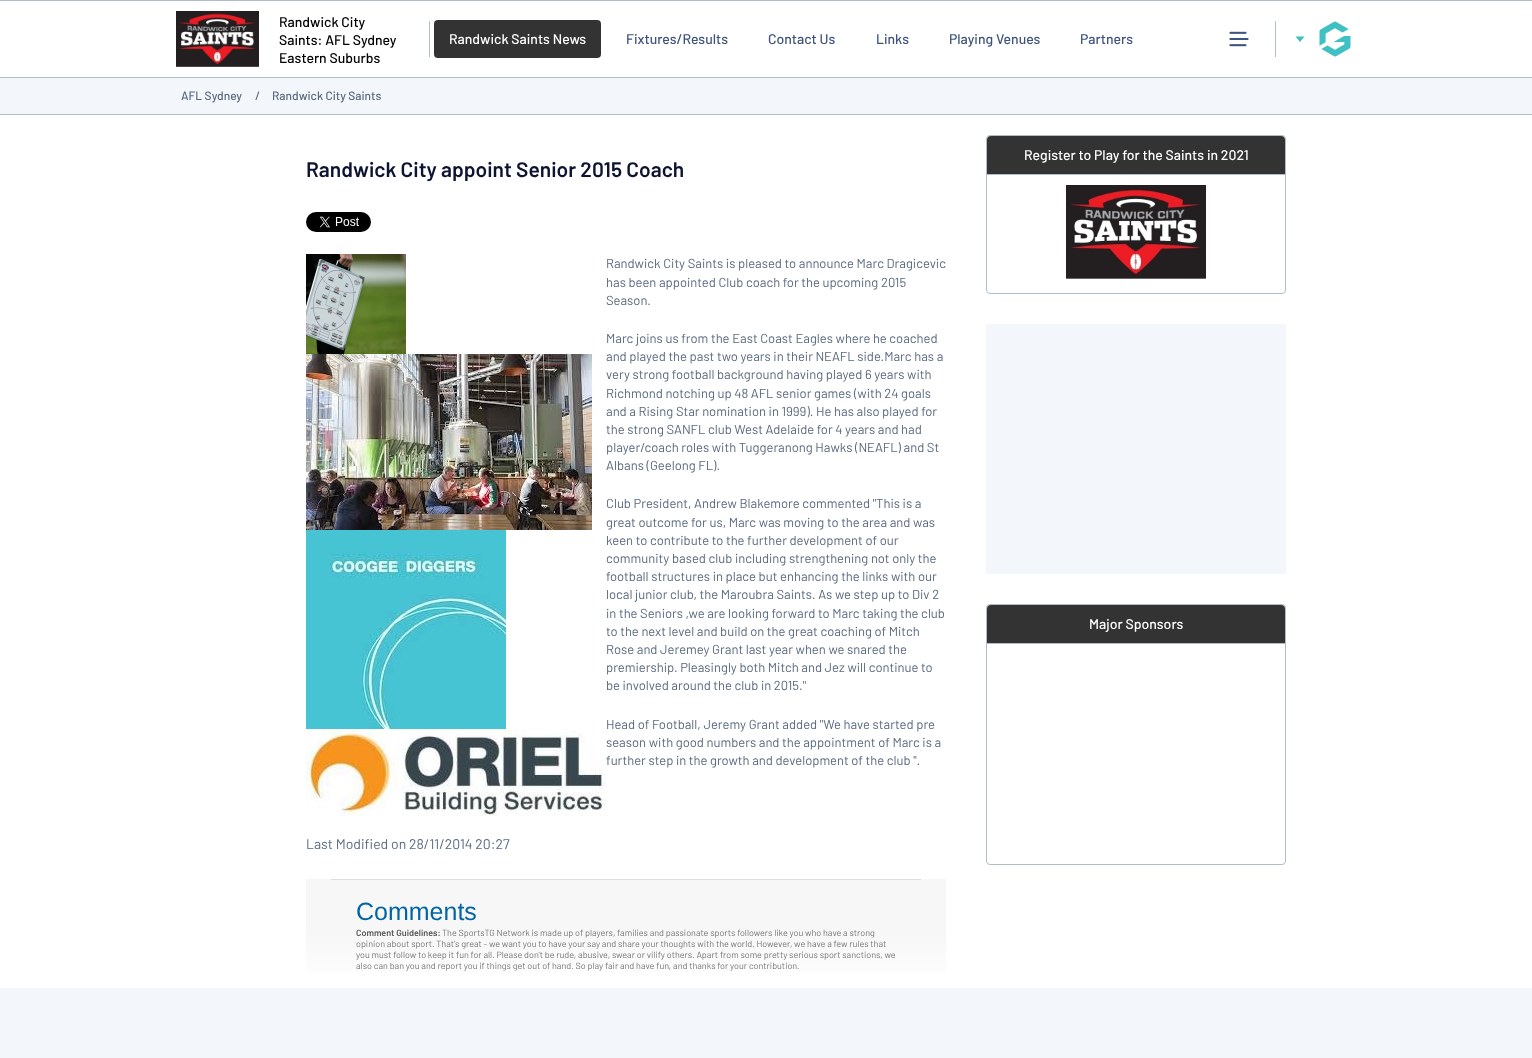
async function draw(canvas) {
	canvas.width = 1532;
	canvas.height = 1058;
	const c = canvas.getContext('2d');
	c.miterLimit = 4;
	c.fontKerning = 'normal';
	async function loadImage(src) {
		const img = new Image();
		img.src = src;
		await img.decode();
		return img;
	}
	let gradient;

	c.fillStyle = '#fff';
	c.fillRect(0, 0, 1532, 1058);
	c.fillStyle = '#afbdca';
	c.fillRect(0, 0, 1532, 1);
	c.fillRect(0, 77, 1532, 1);
	c.drawImage(await loadImage('img1.png'), 176, 11, 83, 56);
	c.font = '500 14px Barlow';
	c.fillStyle = '#000';
	for (const [text, x, y] of [
		['Randwick City', 279, 27],
		['Saints: AFL Sydney', 279, 45],
		['Eastern Suburbs', 279, 63],
	]) {
		c.fillText(text, x, y);
	}
	c.fillStyle = '#afbdca';
	c.fillRect(429, 21, 1, 36);
	c.fillStyle = '#333';
	c.beginPath();
	c.roundRect(434, 20, 167, 38, 4);
	c.fill();
	c.fillStyle = '#fff';
	c.fillText('Randwick Saints News', 449, 44);
	c.fillStyle = '#3e547d';
	for (const [text, x, y] of [
		['Fixtures/Results', 626, 44],
		['Contact Us', 768, 44],
		['Links', 876, 44],
		['Playing Venues', 949, 44],
		['Partners', 1080, 44],
	]) {
		c.fillText(text, x, y);
	}
	c.drawImage(await loadImage('img2.png'), 1229, 31, 20, 16);
	c.fillStyle = '#afbdca';
	c.fillRect(1275, 21, 1, 36);
	c.fillStyle = '#3fc0c3';
	c.beginPath();
	c.moveTo(1300, 42);
	c.lineTo(1304.5, 36.5);
	c.lineTo(1295.5, 36.5);
	c.closePath();
	c.fill();
	c.drawImage(await loadImage('img3.png'), 1319, 21, 32, 36);
	c.fillStyle = '#f3f7fb';
	c.fillRect(0, 78, 1532, 36);
	c.fillStyle = '#afbdca';
	c.fillRect(0, 114, 1532, 1);
	c.font = '500 12px Barlow';
	c.fillStyle = '#5a697f';
	for (const [text, x, y] of [
		['AFL Sydney', 181, 100],
		['/', 255, 100],
		['Randwick City Saints', 272, 100],
	]) {
		c.fillText(text, x, y);
	}
	c.font = '600 21px Barlow';
	c.fillStyle = '#0d1330';
	c.fillText('Randwick City appoint Senior 2015 Coach', 306, 177);
	c.drawImage(await loadImage('img4.png'), 306, 212, 65, 20);
	c.drawImage(await loadImage('img5.png'), 306, 254, 100, 100);
	c.drawImage(await loadImage('img6.png'), 306, 354, 286, 176);
	c.drawImage(await loadImage('img7.png'), 306, 530, 200, 199);
	c.drawImage(await loadImage('img8.png'), 306, 729, 300, 87);
	c.font = '13px Barlow';
	c.fillStyle = '#5a697f';
	for (const [text, x, y] of [
		['Randwick City Saints is pleased to announce Marc Dragicevic', 606, 268],
		['has been appointed Club coach for the upcoming 2015', 606, 287],
		['Season.', 606, 305],
		['Marc joins us from the East Coast Eagles where he coached', 606, 343],
		['and played the past two years in their NEAFL side.Marc has a', 606, 361],
		['very strong football background having played 6 years with', 606, 379],
		['Richmond notching up 48 AFL senior games (with 24 goals', 606, 398],
		['and a Rising Star nomination in 1999). He has also played for', 606, 416],
		['the strong SANFL club West Adelaide for 4 years and had', 606, 434],
		['player/coach roles with Tuggeranong Hawks (NEAFL) and St', 606, 452],
		['Albans (Geelong FL).', 606, 470],
		['Club President, Andrew Blakemore commented "This is a', 606, 508],
		['great outcome for us, Marc was moving to the area and was', 606, 527],
		['keen to contribute to the further development of our', 606, 545],
		['community based club including strengthening not only the', 606, 563],
		['football structures in place but enhancing the links with our', 606, 581],
		['local junior club, the Maroubra Saints. As we step up to Div 2', 606, 599],
		['in the Seniors ,we are looking forward to Marc taking the club', 606, 618],
		['to the next level and build on the great coaching of Mitch', 606, 636],
		['Rose and Jeremey Grant last year when we snared the', 606, 654],
		['premiership. Pleasingly both Mitch and Jez will continue to', 606, 672],
		['be involved around the club in 2015."', 606, 690],
		['Head of Football, Jeremy Grant added "We have started pre', 606, 729],
		['season with good numbers and the appointment of Marc is a', 606, 747],
		['further step in the growth and development of the club ".', 606, 765],
	]) {
		c.fillText(text, x, y);
	}
	c.font = '14px Barlow';
	c.fillText('Last Modified on 28/11/2014 20:27', 306, 849);
	gradient = c.createLinearGradient(306, 996, 306, 879);
	gradient.addColorStop(0.05, '#fff');
	gradient.addColorStop(0.55, '#f7f7f7');
	c.fillStyle = gradient;
	c.fillRect(306, 879, 640, 93);
	c.fillStyle = '#dedede';
	c.fillRect(331, 879, 590, 1);
	c.font = '25px Liberation Sans';
	c.fillStyle = '#0065a4';
	c.fillText('Comments', 356, 920);
	c.font = '600 9px Barlow';
	c.fillStyle = '#555';
	c.fillText('Comment Guidelines:', 356, 936);
	c.font = '9px Barlow';
	c.fillStyle = '#777';
	for (const [text, x, y] of [
		['The SportsTG Network is made up of players, families and passionate sports followers like you who have a strong', 442, 936],
		['opinion about sport. That\'s great - we want you to have your say and share your thoughts with the world. However, we have a few rules that', 356, 947],
		['you must follow to keep it fun for all. Please don\'t be rude, abusive, swear or vilify others. Apart from some pretty serious sport sanctions, we', 356, 958],
		['also can ban you and report you if things get out of hand. So play fair and have fun, and thanks for your contribution.', 356, 969],
	]) {
		c.fillText(text, x, y);
	}
	c.beginPath();
	c.roundRect(986.5, 135.5, 299, 158, 3.5);
	c.strokeStyle = '#afbdca';
	c.stroke();
	c.fillStyle = '#333';
	c.beginPath();
	c.roundRect(987, 136, 298, 39, [4, 4, 0, 0]);
	c.fill();
	c.fillStyle = '#afbdca';
	c.fillRect(987, 174, 298, 1);
	c.font = '500 14px Barlow';
	c.fillStyle = '#fff';
	c.fillText('Register to Play for the Saints in 2021', 1024, 160);
	c.drawImage(await loadImage('img9.png'), 1066, 185, 140, 94);
	c.fillStyle = '#f3f7fb';
	c.fillRect(986, 324, 300, 250);
	c.beginPath();
	c.roundRect(986.5, 604.5, 299, 260, 3.5);
	c.stroke();
	c.fillStyle = '#333';
	c.beginPath();
	c.roundRect(987, 605, 298, 39, [4, 4, 0, 0]);
	c.fill();
	c.fillStyle = '#afbdca';
	c.fillRect(987, 643, 298, 1);
	c.fillStyle = '#fff';
	c.fillText('Major Sponsors', 1089, 629);
	c.fillStyle = '#f3f7fb';
	c.fillRect(0, 988, 1532, 70);
}

draw(document.querySelector('canvas'));
